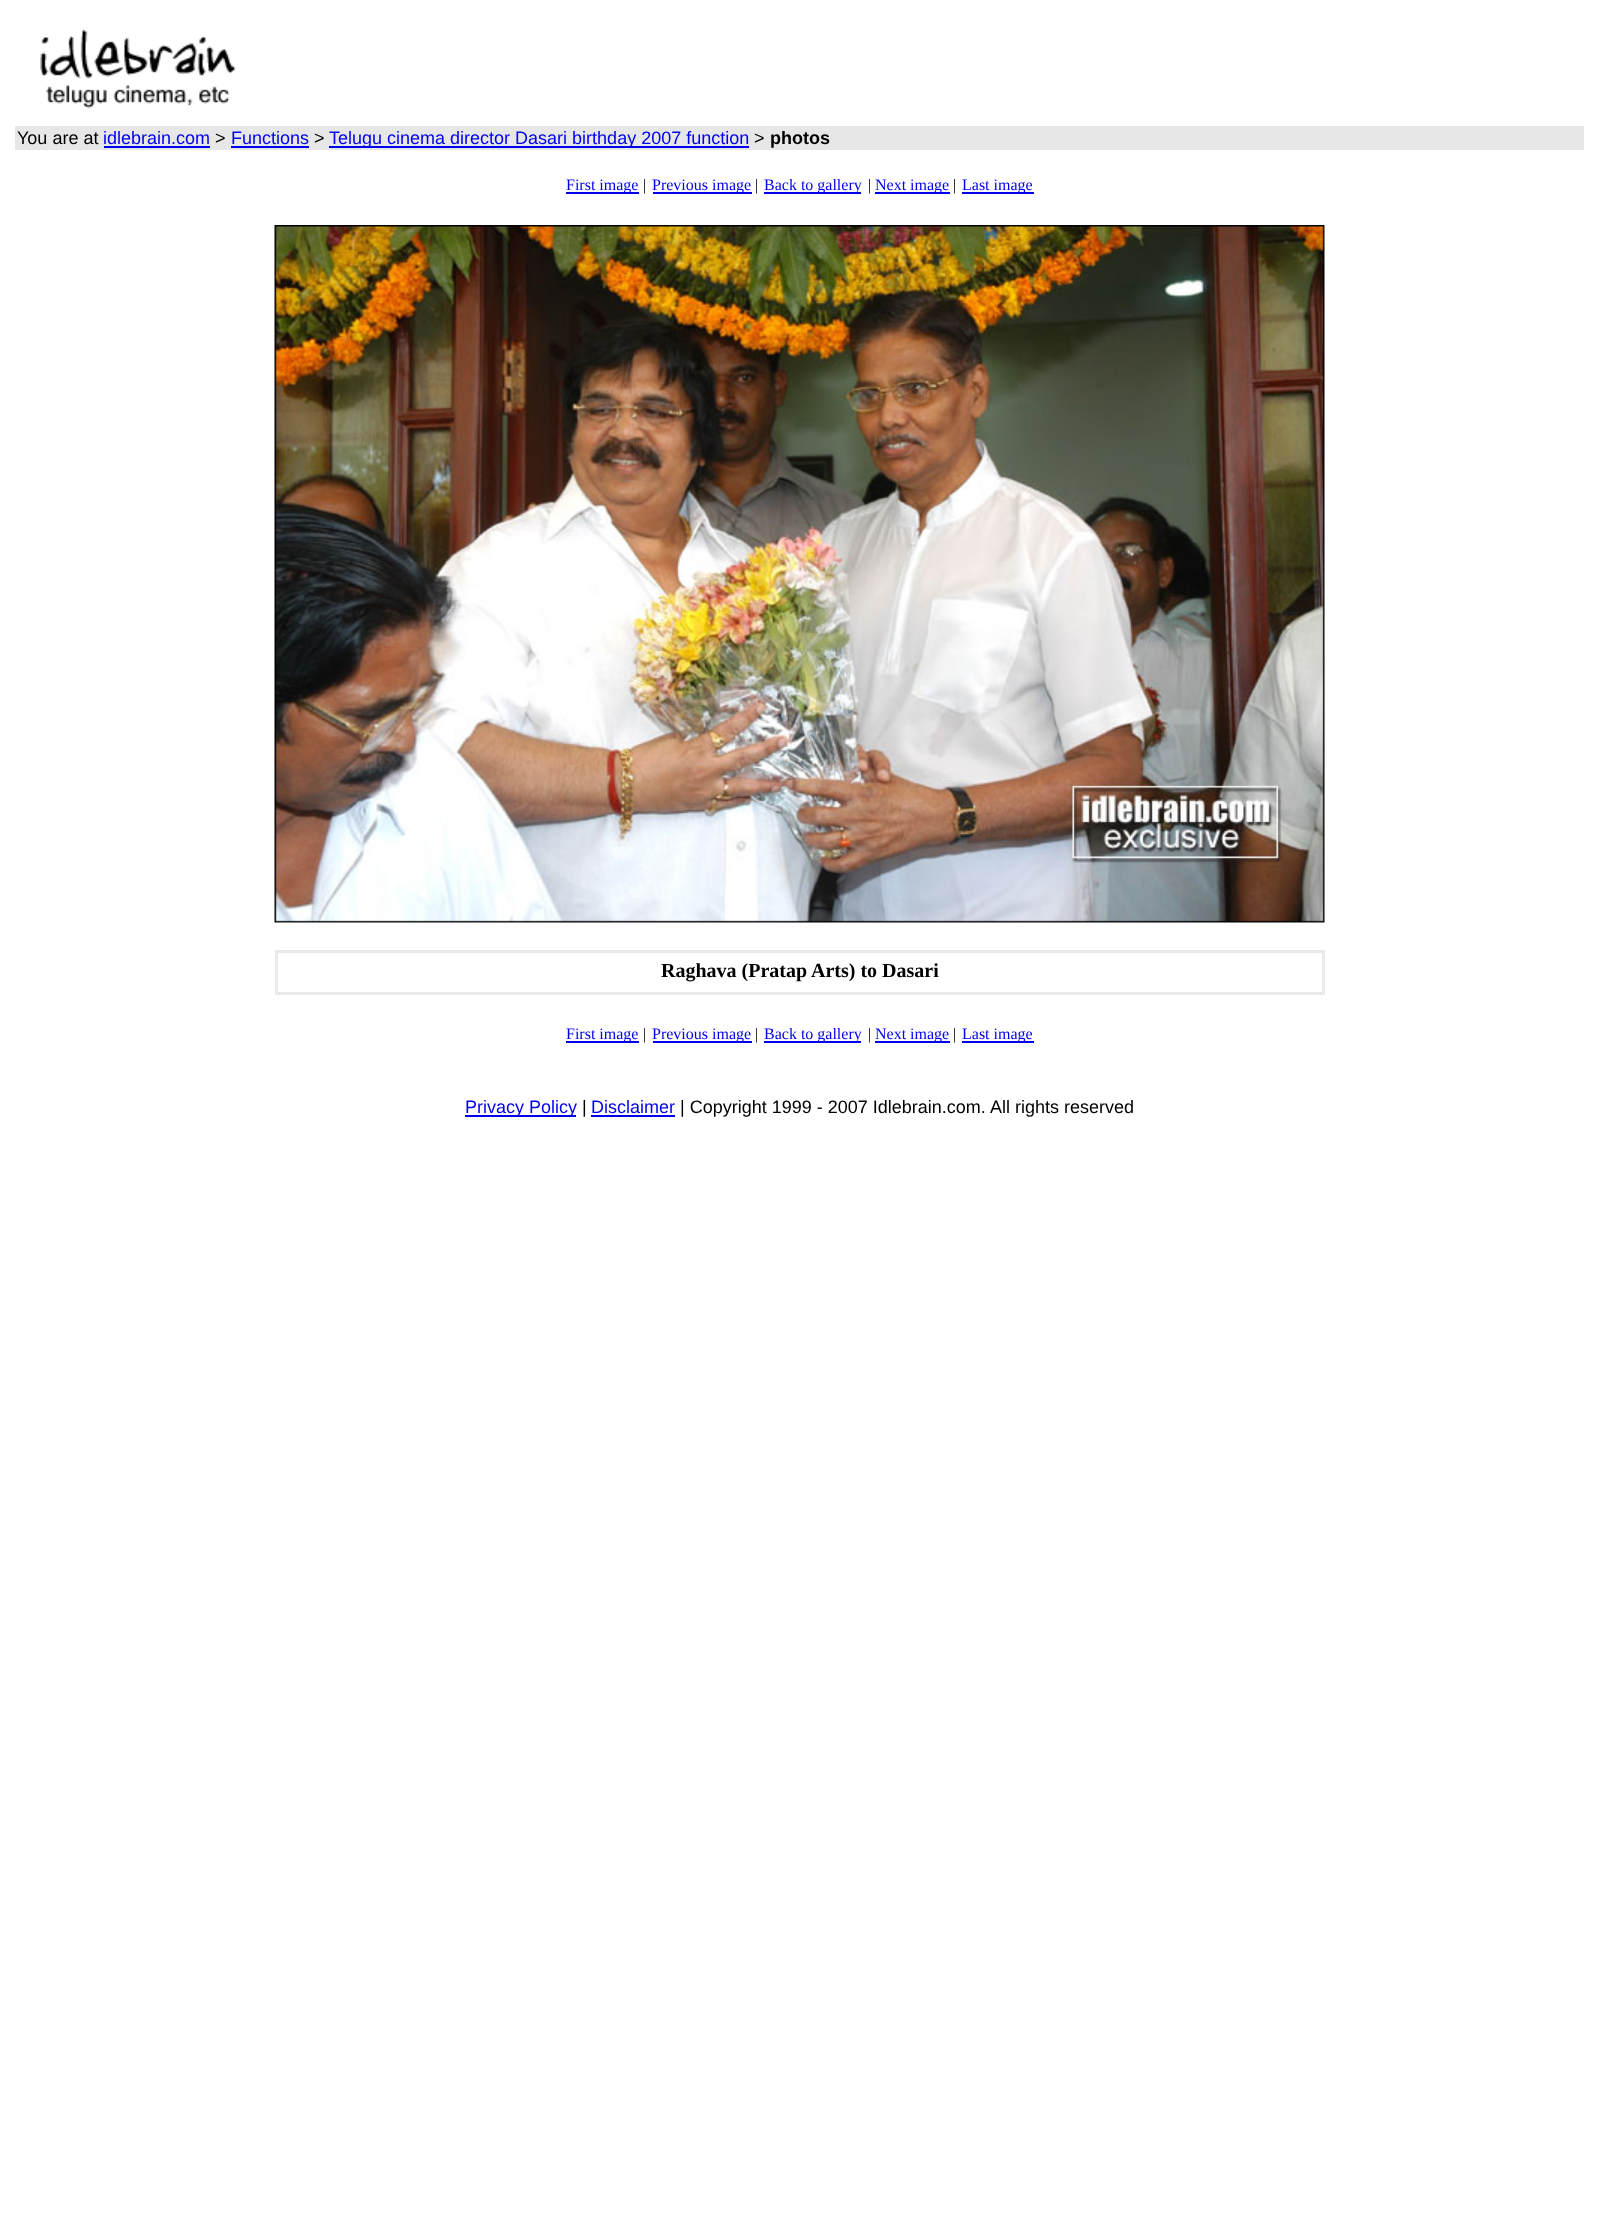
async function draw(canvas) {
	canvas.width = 1598;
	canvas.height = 2232;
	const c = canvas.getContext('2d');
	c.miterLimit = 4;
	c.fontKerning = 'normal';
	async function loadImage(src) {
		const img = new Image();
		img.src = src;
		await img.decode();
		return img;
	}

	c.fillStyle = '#fff';
	c.fillRect(0, 0, 1598, 2232);
	c.drawImage(await loadImage('img1.png'), 40, 29, 196, 80);
	c.fillStyle = '#e7e7e7';
	c.fillRect(15, 126, 1569, 24);
	c.font = '18px Liberation Sans';
	c.fillStyle = '#000';
	c.fillText('You are at', 17, 144);
	c.fillStyle = '#00e';
	c.fillText('idlebrain.com', 103, 144);
	c.fillRect(104, 146, 106, 2);
	c.fillStyle = '#000';
	c.fillText('>', 215, 144);
	c.fillStyle = '#00e';
	c.fillText('Functions', 231, 144);
	c.fillRect(231, 146, 78, 2);
	c.fillStyle = '#000';
	c.fillText('>', 314, 144);
	c.fillStyle = '#00e';
	c.fillRect(329, 146, 420, 2);
	c.fillText('Telugu cinema director Dasari birthday 2007 function', 329, 144);
	c.fillStyle = '#000';
	c.fillText('>', 754, 144);
	c.font = 'bold 18px Liberation Sans';
	c.fillText('photos', 770, 144);
	c.fillStyle = '#00e';
	c.fillRect(566, 192, 73, 2);
	c.font = '16px Liberation Serif';
	c.fillText('First image', 566, 190);
	c.fillStyle = '#000';
	c.fillText('|', 643, 190);
	c.fillStyle = '#00e';
	c.fillRect(653, 192, 99, 2);
	c.fillText('Previous image', 652, 190);
	c.fillStyle = '#000';
	c.fillText('|', 755, 190);
	c.fillStyle = '#00e';
	c.fillRect(764, 192, 97, 2);
	c.fillText('Back to gallery', 764, 190);
	c.fillStyle = '#000';
	c.fillText('|', 868, 190);
	c.fillStyle = '#00e';
	c.fillRect(875, 192, 75, 2);
	c.fillText('Next image', 875, 190);
	c.fillStyle = '#000';
	c.fillText('|', 953, 190);
	c.fillStyle = '#00e';
	c.fillRect(962, 192, 72, 2);
	c.fillText('Last image', 962, 190);
	c.drawImage(await loadImage('img2.png'), 274, 225, 1051, 698);
	c.fillStyle = '#eaeaea';
	c.fillRect(275, 950, 1050, 45);
	c.fillStyle = '#fff';
	c.fillRect(278, 953, 1044, 39);
	c.font = 'bold 20px Liberation Serif';
	c.fillStyle = '#000';
	c.fillText('Raghava (Pratap Arts) to Dasari', 661, 977);
	c.fillStyle = '#00e';
	c.fillRect(566, 1041, 73, 2);
	c.font = '16px Liberation Serif';
	c.fillText('First image', 566, 1039);
	c.fillStyle = '#000';
	c.fillText('|', 643, 1039);
	c.fillStyle = '#00e';
	c.fillRect(653, 1041, 99, 2);
	c.fillText('Previous image', 652, 1039);
	c.fillStyle = '#000';
	c.fillText('|', 755, 1039);
	c.fillStyle = '#00e';
	c.fillRect(764, 1041, 97, 2);
	c.fillText('Back to gallery', 764, 1039);
	c.fillStyle = '#000';
	c.fillText('|', 868, 1039);
	c.fillStyle = '#00e';
	c.fillRect(875, 1041, 75, 2);
	c.fillText('Next image', 875, 1039);
	c.fillStyle = '#000';
	c.fillText('|', 953, 1039);
	c.fillStyle = '#00e';
	c.fillRect(962, 1041, 72, 2);
	c.fillText('Last image', 962, 1039);
	c.fillRect(465, 1115, 111, 2);
	c.font = '18px Liberation Sans';
	c.fillText('Privacy Policy', 465, 1113);
	c.fillStyle = '#000';
	c.fillText('|', 582, 1113);
	c.fillStyle = '#00e';
	c.fillText('Disclaimer', 591, 1113);
	c.fillRect(591, 1115, 84, 2);
	c.fillStyle = '#000';
	c.fillText('| Copyright 1999 - 2007 Idlebrain.com.', 680, 1113);
	c.fillText('All rights reserved', 990, 1113);
}

draw(document.querySelector('canvas'));
